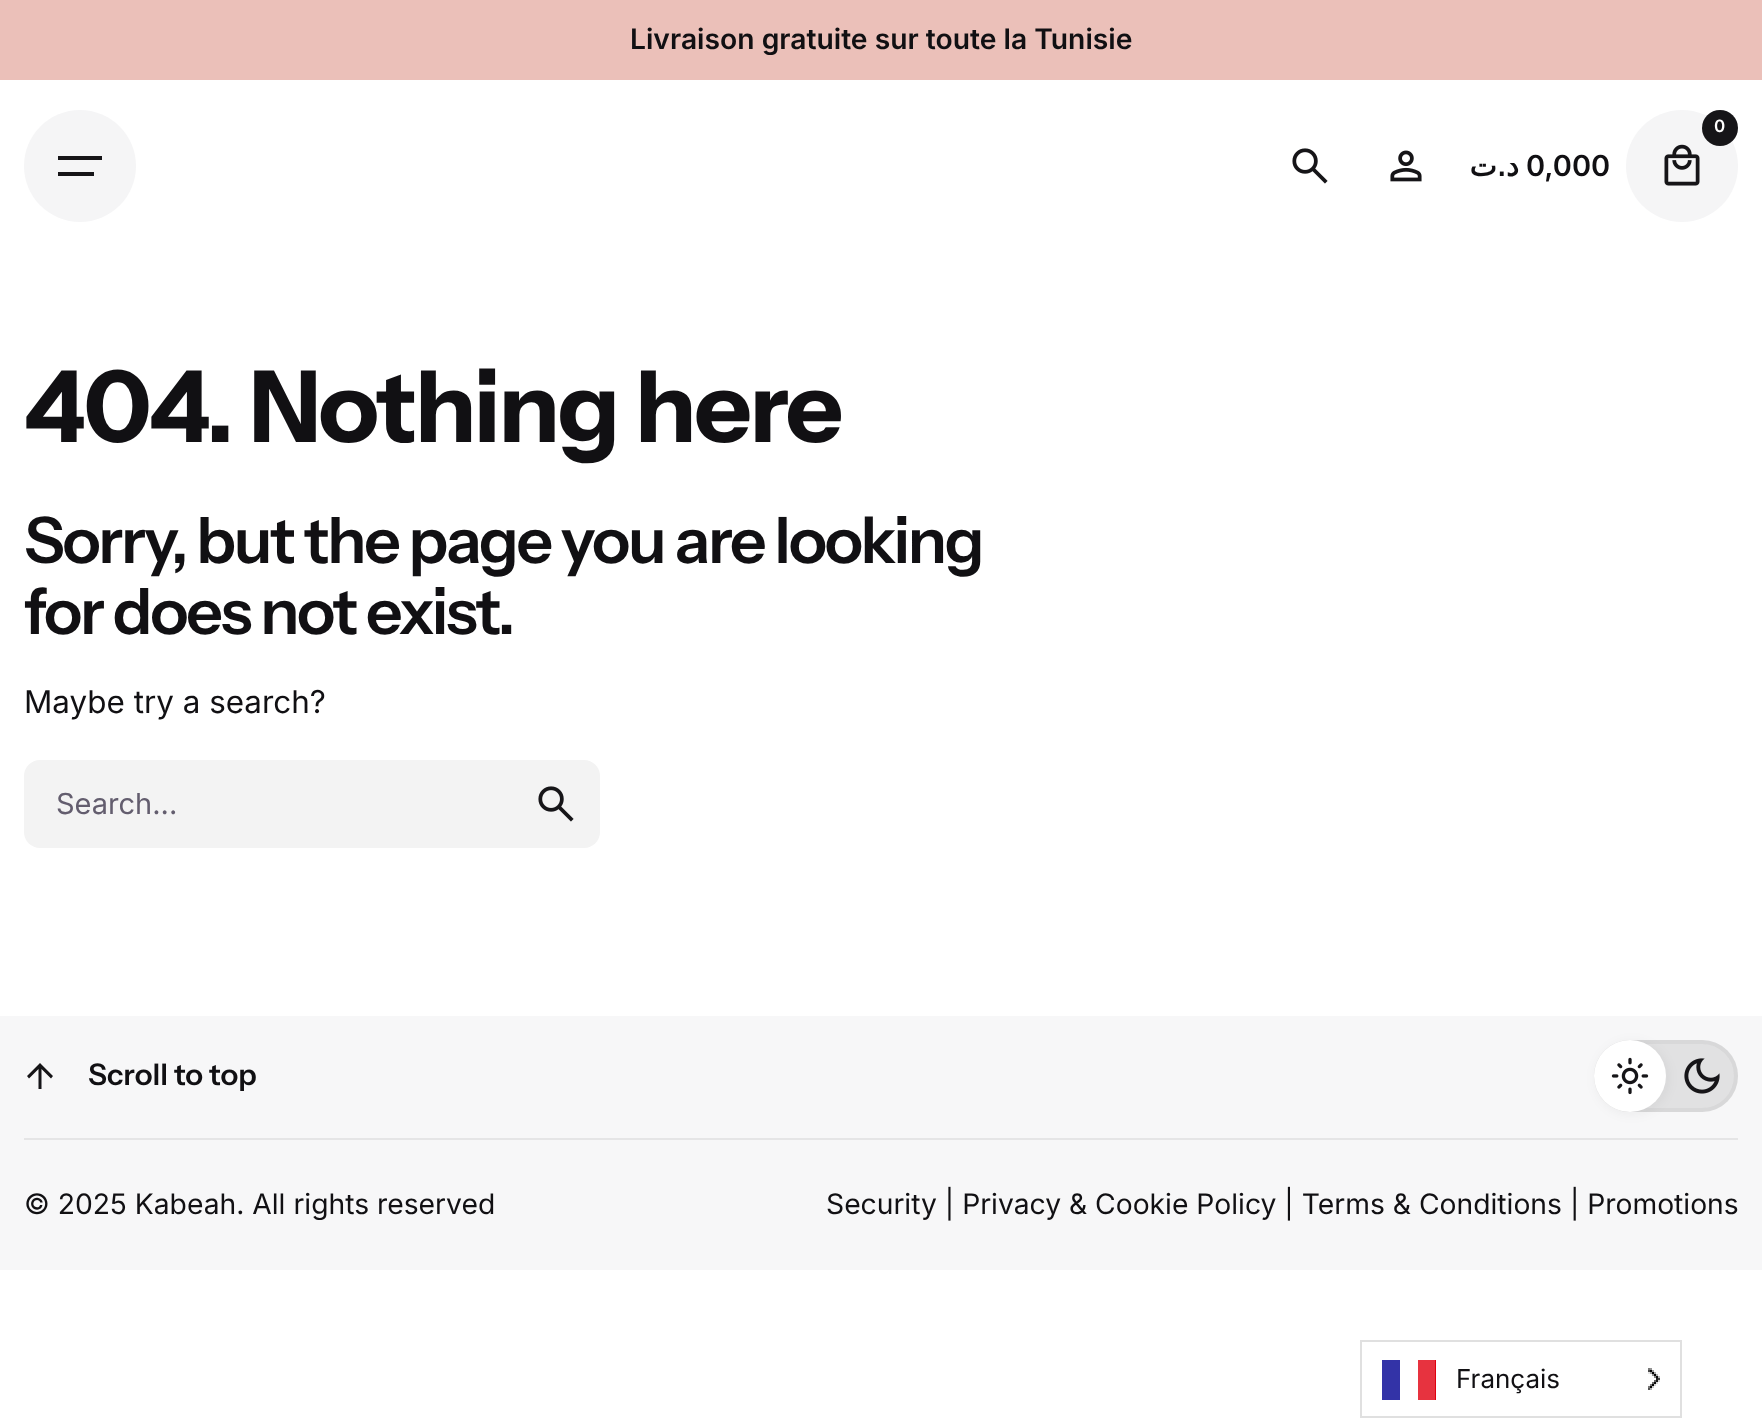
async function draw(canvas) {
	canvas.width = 1762;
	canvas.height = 1418;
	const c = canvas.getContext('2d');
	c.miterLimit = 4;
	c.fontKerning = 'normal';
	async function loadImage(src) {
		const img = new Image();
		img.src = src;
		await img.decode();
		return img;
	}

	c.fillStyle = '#fff';
	c.fillRect(0, 0, 1762, 1418);
	c.fillStyle = '#ebc0b9';
	c.fillRect(0, 0, 1762, 80);
	c.font = '600 28.25px Inter';
	c.fillStyle = '#111013';
	c.fillText('Livraison gratuite sur toute la Tunisie', 630, 49);
	c.fillStyle = '#f5f5f6';
	c.beginPath();
	c.arc(80, 166, 56, 0, 2 * Math.PI);
	c.fill();
	c.fillStyle = '#161518';
	c.fillRect(58, 156, 44, 4);
	c.fillRect(58, 172, 36, 4);
	c.drawImage(await loadImage('img1.png'), 1292, 148, 36, 36);
	c.drawImage(await loadImage('img2.png'), 1390, 150, 32, 32);
	c.fillStyle = '#f5f5f6';
	c.beginPath();
	c.arc(1682, 166, 56, 0, 2 * Math.PI);
	c.fill();
	c.drawImage(await loadImage('img3.png'), 1664, 144, 36, 42);
	c.fillStyle = '#161518';
	c.beginPath();
	c.arc(1720, 128, 18, 0, 2 * Math.PI);
	c.fill();
	c.font = '600 17px Inter';
	c.fillStyle = '#fff';
	c.fillText('0', 1714, 132);
	c.direction = 'rtl';
	c.font = 'bold 29px DejaVu Sans';
	c.fillStyle = '#111013';
	c.fillText('د.ت', 1519, 176);
	c.direction = 'ltr';
	c.font = '600 29px Inter';
	c.fillText('0,000', 1526, 176);
	c.letterSpacing = '-2px';
	c.font = 'bold 99.25px Instrument Sans';
	c.fillText('404. Nothing here', 24, 442);
	c.letterSpacing = '-2.25px';
	c.font = '600 64px Instrument Sans';
	c.fillText('Sorry, but the page you are looking', 24, 563);
	c.fillText('for does not exist.', 24, 634);
	c.letterSpacing = '0px';
	c.font = '31.4px Inter';
	c.fillText('Maybe try a search?', 24, 713);
	c.fillStyle = '#f3f3f3';
	c.beginPath();
	c.roundRect(24, 760, 576, 88, 16);
	c.fill();
	c.font = '29px Inter';
	c.fillStyle = '#635d6e';
	c.fillText('Search...', 56, 814);
	c.drawImage(await loadImage('img4.png'), 538, 786, 36, 36);
	c.fillStyle = '#f7f7f8';
	c.fillRect(0, 1016, 1762, 254);
	c.fillStyle = '#161518';
	c.beginPath();
	c.moveTo(38.5, 1089);
	c.lineTo(38.5, 1069);
	c.lineTo(29, 1078.5);
	c.lineTo(27, 1076);
	c.lineTo(40, 1063);
	c.lineTo(53, 1076);
	c.lineTo(51, 1078.5);
	c.lineTo(41.5, 1069);
	c.lineTo(41.5, 1089);
	c.closePath();
	c.fill();
	c.font = '600 29.75px Instrument Sans';
	c.fillStyle = '#111013';
	c.fillText('Scroll to top', 88, 1085);
	c.fillStyle = '#e1e1e2';
	c.beginPath();
	c.roundRect(1594, 1040, 144, 72, 36);
	c.fill();
	c.beginPath();
	c.roundRect(1596, 1042, 140, 68, 34);
	c.strokeStyle = '#8888891a';
	c.lineWidth = 4;
	c.stroke();
	c.drawImage(await loadImage('img6.png'), 1684, 1058, 36, 36);
	c.fillStyle = '#1110130d';
	c.filter = 'blur(6px)';
	c.beginPath();
	c.roundRect(1596, 1042, 72, 72, 36);
	c.fill();
	c.filter = 'none';
	c.fillStyle = '#fff';
	c.beginPath();
	c.arc(1630, 1076, 36, 0, 2 * Math.PI);
	c.fill();
	c.drawImage(await loadImage('img5.png'), 1611, 1057, 38, 38);
	c.fillStyle = '#e5e5e6';
	c.fillRect(24, 1138, 1714, 2);
	c.font = '28.25px Inter';
	c.fillStyle = '#111013';
	c.fillText('© 2025 Kabeah. All rights reserved', 24, 1214);
	c.fillText('Security | Privacy & Cookie Policy | Terms & Conditions | Promotions', 826, 1214);
	c.strokeStyle = '#e0e0e0';
	c.lineWidth = 2;
	c.strokeRect(1361, 1341, 320, 76);
	for (const [x, y, w, h, color] of [
		[1382, 1360, 18, 40, '#3333a7'],
		[1435, 1360, 1, 40, '#e1000f'],
		[1418, 1360, 17, 40, '#e7333f'],
	]) {
		c.fillStyle = color;
		c.fillRect(x, y, w, h);
	}
	c.font = '26px Inter';
	c.fillStyle = '#111013';
	c.fillText('Français', 1456, 1388);
	c.drawImage(await loadImage('img7.png'), 1648, 1368, 12, 22);
}

draw(document.querySelector('canvas'));
